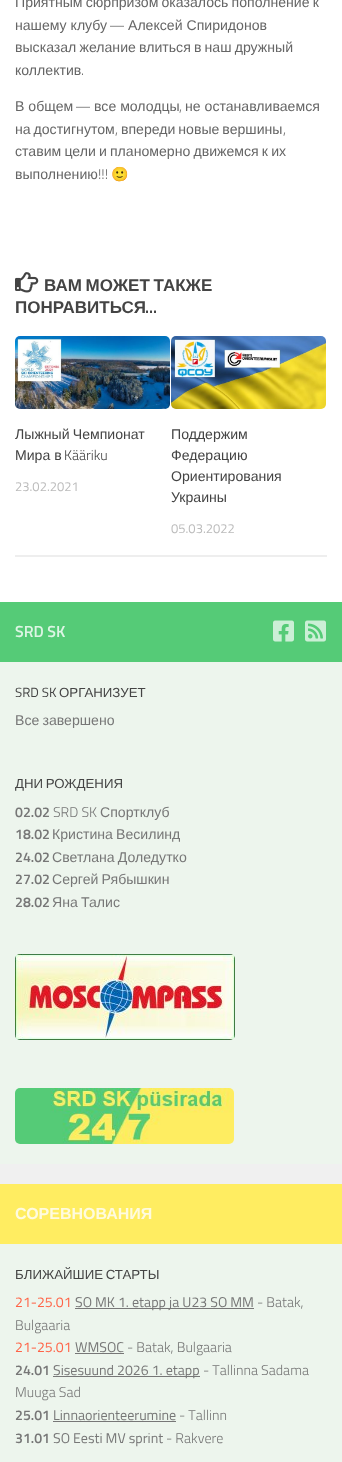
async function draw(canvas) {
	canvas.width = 342;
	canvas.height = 1462;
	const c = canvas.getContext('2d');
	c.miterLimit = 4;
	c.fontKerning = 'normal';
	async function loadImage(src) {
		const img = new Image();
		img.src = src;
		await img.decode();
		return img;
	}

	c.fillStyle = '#fff';
	c.fillRect(0, 0, 342, 1462);
	c.wordSpacing = '-0.75px';
	c.font = '14.1px Liberation Sans';
	c.fillStyle = '#666';
	c.fillText('Приятным сюрпризом оказалось пополнение к', 15, 7);
	c.wordSpacing = '0px';
	c.fillText('нашему клубу', 15, 30);
	c.font = '300 14.1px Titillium';
	c.fillText('—', 109, 30);
	c.font = '14.1px Liberation Sans';
	c.fillText('Алексей Спиридонов', 128, 30);
	c.wordSpacing = '-0.75px';
	c.fillText('высказал желание влиться в наш дружный', 15, 52);
	c.wordSpacing = '0px';
	c.fillText('коллектив', 15, 75);
	c.font = '300 14.1px Titillium';
	c.fillText('.', 81, 75);
	c.font = '14.1px Liberation Sans';
	c.fillText('В общем', 15, 111);
	c.font = '300 14.1px Titillium';
	c.fillText('—', 75, 111);
	c.font = '14.1px Liberation Sans';
	c.fillText('все молодцы', 94, 111);
	c.fillText('не останавливаемся', 185, 111);
	c.font = '300 14.1px Titillium';
	c.fillText(',', 179, 111);
	c.wordSpacing = '-1px';
	c.font = '14.1px Liberation Sans';
	c.fillText('на достигнутом', 15, 134);
	c.wordSpacing = '0px';
	c.font = '300 14.1px Titillium';
	c.fillText(',', 115, 134);
	c.wordSpacing = '-1px';
	c.font = '14.1px Liberation Sans';
	c.fillText('впереди новые вершины', 121, 134);
	c.wordSpacing = '0px';
	c.font = '300 14.1px Titillium';
	c.fillText(',', 283, 134);
	c.wordSpacing = '-0.75px';
	c.font = '14.1px Liberation Sans';
	c.fillText('ставим цели и планомерно движемся к их', 15, 156);
	c.wordSpacing = '0px';
	c.fillText('выполнению', 15, 179);
	c.font = '300 14.1px Titillium';
	c.fillText('!!!', 98, 179);
	c.font = '14.1px Noto Color Emoji';
	c.fillText('🙂', 111, 179);
	c.drawImage(await loadImage('img1.png'), 15, 272, 24, 21);
	c.wordSpacing = '-1px';
	c.font = 'bold 17px Liberation Sans';
	c.fillStyle = '#444';
	c.fillText('ВАМ МОЖЕТ ТАКЖЕ', 44, 291);
	c.wordSpacing = '0px';
	c.fillText('ПОНРАВИТЬСЯ', 15, 313);
	c.font = '600 17px Titillium';
	c.fillText('...', 145, 313);
	c.fillStyle = '#eee';
	c.fillRect(15, 555, 312, 2);
	c.drawImage(await loadImage('img2.png'), 15, 336, 155, 73);
	c.wordSpacing = '-0.75px';
	c.font = '14.1px Liberation Sans';
	c.fillStyle = '#444';
	c.fillText('Лыжный Чемпионат', 15, 439);
	c.wordSpacing = '0px';
	c.fillText('Мира в', 15, 460);
	c.font = '300 14.1px Titillium';
	c.fillText('Kääriku', 64, 460);
	c.font = '13px Titillium';
	c.fillStyle = '#bbb';
	c.fillText('23.02.2021', 15, 491);
	c.drawImage(await loadImage('img3.png'), 171, 336, 155, 73);
	c.font = '14.1px Liberation Sans';
	c.fillStyle = '#444';
	for (const [text, x, y] of [
		['Поддержим', 171, 439],
		['Федерацию', 171, 460],
		['Ориентирования', 171, 481],
		['Украины', 171, 502],
	]) {
		c.fillText(text, x, y);
	}
	c.font = '13px Titillium';
	c.fillStyle = '#bbb';
	c.fillText('05.03.2022', 171, 533);
	for (const [x, y, w, h, color] of [
		[0, 1164, 342, 20, '#f0f0f0'],
		[0, 662, 342, 502, '#edf5ed'],
		[0, 602, 342, 60, '#55cb77'],
	]) {
		c.fillStyle = color;
		c.fillRect(x, y, w, h);
	}
	c.font = '600 16px Titillium';
	c.fillStyle = '#ddf5e4';
	c.fillText('SRD SK', 15, 637);
	c.drawImage(await loadImage('img4.png'), 273, 620, 21, 22);
	c.drawImage(await loadImage('img5.png'), 305, 620, 21, 22);
	c.font = '13.25px Titillium';
	c.fillStyle = '#444';
	c.fillText('SRD SK', 15, 697);
	c.font = '13.25px Liberation Sans';
	c.fillText('ОРГАНИЗУЕТ', 59, 697);
	c.wordSpacing = '-0.75px';
	c.font = '14.1px Liberation Sans';
	c.fillStyle = '#777';
	c.fillText('Все завершено', 15, 725);
	c.wordSpacing = '-1px';
	c.font = '13.25px Liberation Sans';
	c.fillStyle = '#444';
	c.fillText('ДНИ РОЖДЕНИЯ', 15, 788);
	c.wordSpacing = '0px';
	c.font = '600 14.1px Titillium';
	c.fillStyle = '#777';
	c.fillText('02.02', 15, 817);
	c.font = '300 14.1px Titillium';
	c.fillText('SRD SK', 53, 817);
	c.font = '14.1px Liberation Sans';
	c.fillText('Спортклуб', 100, 817);
	c.font = '600 14.1px Titillium';
	c.fillText('18.02', 15, 839);
	c.wordSpacing = '-0.75px';
	c.font = '14.1px Liberation Sans';
	c.fillText('Кристина Весилинд', 52, 839);
	c.wordSpacing = '0px';
	c.font = '600 14.1px Titillium';
	c.fillText('24.02', 15, 862);
	c.wordSpacing = '-0.75px';
	c.font = '14.1px Liberation Sans';
	c.fillText('Светлана Доледутко', 52, 862);
	c.wordSpacing = '0px';
	c.font = '600 14.1px Titillium';
	c.fillText('27.02', 15, 884);
	c.wordSpacing = '-0.75px';
	c.font = '14.1px Liberation Sans';
	c.fillText('Сергей Рябышкин', 52, 884);
	c.wordSpacing = '0px';
	c.font = '600 14.1px Titillium';
	c.fillText('28.02', 15, 907);
	c.wordSpacing = '-0.75px';
	c.font = '14.1px Liberation Sans';
	c.fillText('Яна Талис', 52, 907);
	c.drawImage(await loadImage('img6.png'), 15, 954, 220, 86);
	c.drawImage(await loadImage('img7.png'), 15, 1088, 219, 56);
	c.fillStyle = '#edf5ed';
	c.fillRect(0, 1244, 342, 218);
	c.fillStyle = '#ffed61';
	c.fillRect(0, 1184, 342, 60);
	c.wordSpacing = '0px';
	c.font = 'bold 16px Liberation Sans';
	c.fillStyle = '#fffbdf';
	c.fillText('СОРЕВНОВАНИЯ', 15, 1219);
	c.wordSpacing = '-1px';
	c.font = '13.25px Liberation Sans';
	c.fillStyle = '#444';
	c.fillText('БЛИЖАЙШИЕ СТАРТЫ', 15, 1279);
	c.wordSpacing = '0px';
	c.font = '14.1px Titillium';
	c.fillStyle = '#ff6347';
	c.fillText('21-25.01', 15, 1307);
	c.fillStyle = '#777';
	c.fillRect(75, 1308, 179, 1);
	c.fillText('SO MK 1. etapp ja U23 SO MM', 75, 1307);
	c.font = '300 14.1px Titillium';
	c.fillText('- Batak,', 257, 1307);
	c.fillText('Bulgaaria', 15, 1330);
	c.font = '14.1px Titillium';
	c.fillStyle = '#ff6347';
	c.fillText('21-25.01', 15, 1352);
	c.fillStyle = '#777';
	c.fillText('WMSOC', 75, 1352);
	c.fillRect(75, 1353, 49, 1);
	c.font = '300 14.1px Titillium';
	c.fillText('- Batak, Bulgaaria', 127, 1352);
	c.font = '600 14.1px Titillium';
	c.fillText('24.01', 15, 1375);
	c.fillRect(53, 1376, 147, 1);
	c.font = '14.1px Titillium';
	c.fillText('Sisesuund 2026 1. etapp', 53, 1375);
	c.font = '300 14.1px Titillium';
	c.fillText('- Tallinna Sadama', 203, 1375);
	c.fillText('Muuga Sad', 15, 1397);
	c.font = '600 14.1px Titillium';
	c.fillText('25.01', 15, 1420);
	c.font = '14.1px Titillium';
	c.fillText('Linnaorienteerumine', 53, 1420);
	c.fillRect(53, 1421, 123, 1);
	c.font = '300 14.1px Titillium';
	c.fillText('- Tallinn', 179, 1420);
	c.font = '600 14.1px Titillium';
	c.fillText('31.01', 15, 1443);
	c.font = '14.1px Titillium';
	c.fillText('SO Eesti MV sprint', 53, 1443);
	c.font = '300 14.1px Titillium';
	c.fillText('- Rakvere', 166, 1443);
}

draw(document.querySelector('canvas'));
